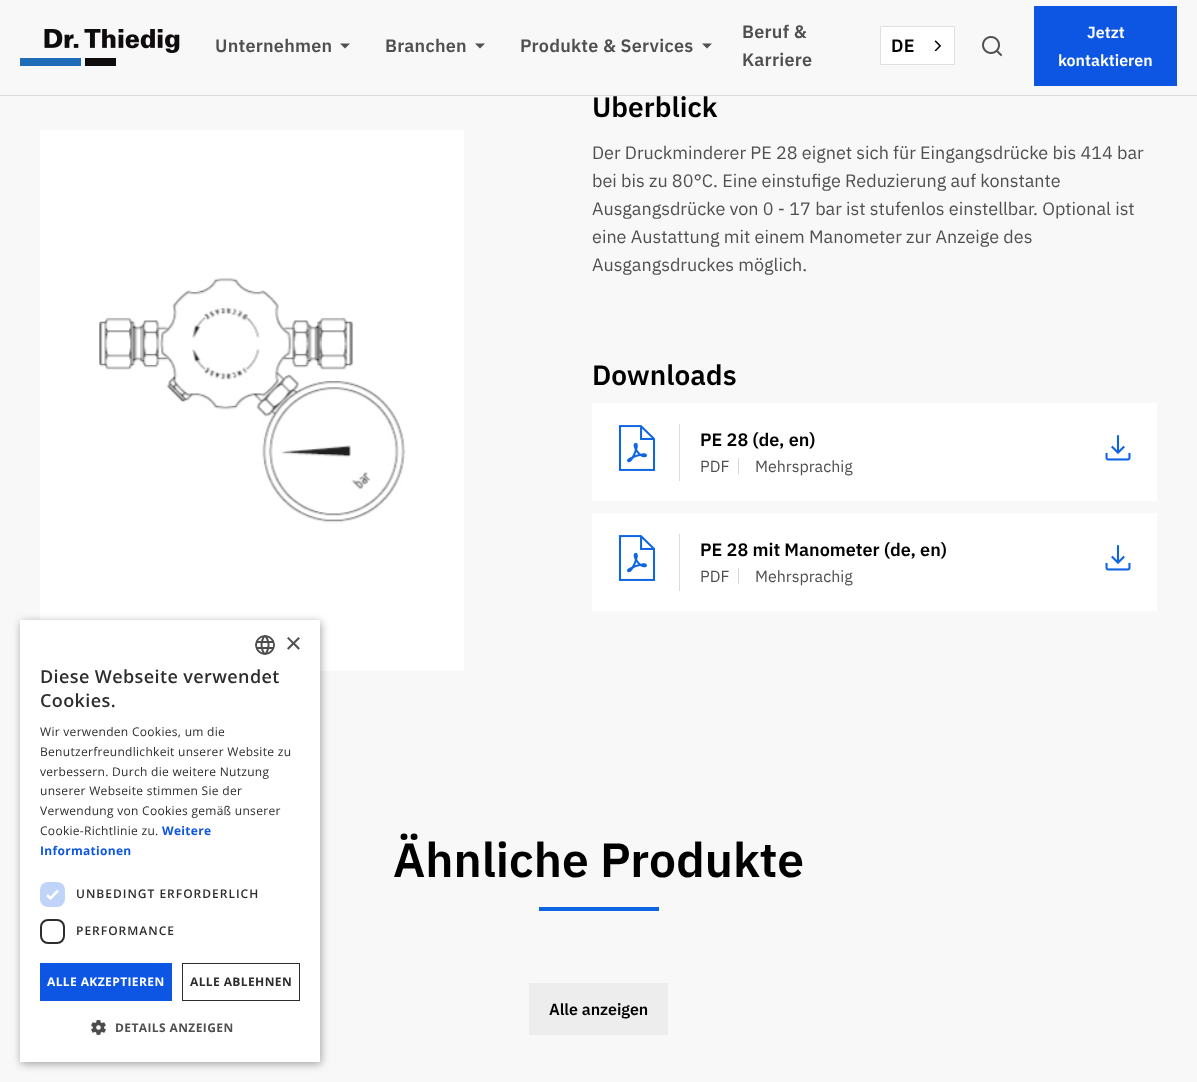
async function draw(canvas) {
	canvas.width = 1197;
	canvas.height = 1082;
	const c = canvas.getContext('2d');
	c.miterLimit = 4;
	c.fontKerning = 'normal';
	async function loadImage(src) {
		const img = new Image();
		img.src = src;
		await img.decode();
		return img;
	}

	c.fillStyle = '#f8f8f8';
	c.fillRect(0, 0, 1197, 1082);
	c.fillStyle = '#fff';
	c.fillRect(40, 130, 424, 541);
	c.fillStyle = '#00000059';
	c.filter = 'blur(4px)';
	c.beginPath();
	c.rect(21, 622, 300, 442);
	c.fill();
	c.filter = 'none';
	c.fillStyle = '#fff';
	c.fillRect(20, 620, 300, 442);
	c.drawImage(await loadImage('img1.png'), 255, 635, 20, 20);
	c.font = '29px Liberation Sans';
	c.fillStyle = '#505050';
	c.fillText('×', 285, 653);
	c.letterSpacing = '0.4px';
	c.font = '600 18px Open Sans';
	c.fillStyle = '#2d2d2d';
	c.fillText('Diese Webseite verwendet', 40, 683);
	c.fillText('Cookies.', 40, 707);
	c.letterSpacing = '0.3px';
	c.font = '12px Open Sans';
	for (const [text, x, y] of [
		['Wir verwenden Cookies, um die', 40, 736],
		['Benutzerfreundlichkeit unserer Website zu', 40, 756],
		['verbessern. Durch die weitere Nutzung', 40, 776],
		['unserer Webseite stimmen Sie der', 40, 795],
		['Verwendung von Cookies gemäß unserer', 40, 815],
		['Cookie-Richtlinie zu.', 40, 835],
	]) {
		c.fillText(text, x, y);
	}
	c.font = 'bold 12px Open Sans';
	c.fillStyle = '#0d56e3';
	c.fillText('Weitere', 162, 835);
	c.fillText('Informationen', 40, 855);
	c.fillStyle = '#c0d3f8';
	c.beginPath();
	c.roundRect(40, 882, 25, 25, 8);
	c.fill();
	c.beginPath();
	c.moveTo(47, 895);
	c.lineTo(50.5, 898.5);
	c.lineTo(58, 890.5);
	c.strokeStyle = '#fff';
	c.lineWidth = 2.6;
	c.stroke();
	c.letterSpacing = '1px';
	c.font = '600 12px Open Sans';
	c.fillStyle = '#2d2d2d';
	c.fillText('UNBEDINGT ERFORDERLICH', 76, 898);
	c.beginPath();
	c.roundRect(41, 920, 23, 23, 7);
	c.strokeStyle = '#2d2d2d';
	c.lineWidth = 2;
	c.stroke();
	c.fillText('PERFORMANCE', 76, 935);
	c.fillStyle = '#0d56e3';
	c.fillRect(40, 963, 132, 38);
	c.letterSpacing = '0.4px';
	c.font = 'bold 12px Open Sans';
	c.fillStyle = '#fff';
	c.fillText('ALLE AKZEPTIEREN', 47, 986);
	c.lineWidth = 1;
	c.strokeRect(182.5, 963.5, 117, 37);
	c.fillStyle = '#2d2d2d';
	c.fillText('ALLE ABLEHNEN', 190, 986);
	c.drawImage(await loadImage('img2.png'), 91, 1020, 15, 15);
	c.fillStyle = '#505050';
	c.fillText('DETAILS ANZEIGEN', 115, 1032);
	c.letterSpacing = '0px';
	c.font = '600 28px IBM Plex Sans';
	c.fillStyle = '#000';
	c.fillText('Überblick', 592, 117);
	c.fillStyle = '#f8f8f8';
	c.fillRect(596, 91, 11, 4);
	c.fillStyle = '#dbdbdb';
	c.fillRect(0, 95, 1197, 1);
	c.drawImage(await loadImage('img3.png'), 20, 29, 160, 37);
	c.letterSpacing = '0.25px';
	c.font = '600 18px IBM Plex Sans';
	c.fillStyle = '#505050';
	c.fillText('Unternehmen', 215, 52);
	c.beginPath();
	c.moveTo(345, 48.5);
	c.lineTo(340, 43.5);
	c.lineTo(350, 43.5);
	c.closePath();
	c.fill();
	c.fillText('Branchen', 385, 52);
	c.beginPath();
	c.moveTo(480, 48.5);
	c.lineTo(475, 43.5);
	c.lineTo(485, 43.5);
	c.closePath();
	c.fill();
	c.fillText('Produkte & Services', 520, 52);
	c.beginPath();
	c.moveTo(707, 48.5);
	c.lineTo(702, 43.5);
	c.lineTo(712, 43.5);
	c.closePath();
	c.fill();
	c.fillText('Beruf &', 742, 38);
	c.fillText('Karriere', 742, 66);
	c.fillStyle = '#fff';
	c.beginPath();
	c.rect(880.5, 26.5, 74, 38);
	c.fill();
	c.strokeStyle = '#e0e0e0';
	c.stroke();
	c.fillStyle = '#000';
	c.fillText('DE', 891, 52);
	c.drawImage(await loadImage('img4.png'), 934, 40, 7, 11);
	c.drawImage(await loadImage('img5.png'), 982, 36, 21, 21);
	c.fillStyle = '#0d56e3';
	c.fillRect(1034, 6, 143, 80);
	c.letterSpacing = '0px';
	c.font = '600 16px IBM Plex Sans';
	c.fillStyle = '#fff';
	c.fillText('Jetzt', 1087, 38);
	c.fillText('kontaktieren', 1058, 66);
	c.drawImage(await loadImage('img6.png'), 99, 278, 307, 245);
	c.font = '18px IBM Plex Sans';
	c.fillStyle = '#505050';
	for (const [text, x, y] of [
		['Der Druckminderer PE 28 eignet sich für Eingangsdrücke bis 414 bar', 592, 159],
		['bei bis zu 80°C. Eine einstufige Reduzierung auf konstante', 592, 187],
		['Ausgangsdrücke von 0 - 17 bar ist stufenlos einstellbar. Optional ist', 592, 215],
		['eine Austattung mit einem Manometer zur Anzeige des', 592, 243],
		['Ausgangsdruckes möglich.', 592, 271],
	]) {
		c.fillText(text, x, y);
	}
	c.font = '600 28px IBM Plex Sans';
	c.fillStyle = '#000';
	c.fillText('Downloads', 592, 385);
	c.fillStyle = '#fff';
	c.fillRect(592, 403, 565, 98);
	c.drawImage(await loadImage('img7.png'), 618, 425, 38, 46);
	c.fillStyle = '#dbdbdb';
	c.fillRect(679, 424, 1, 57);
	c.font = '600 18px IBM Plex Sans';
	c.fillStyle = '#000';
	c.fillText('PE 28 (de, en)', 700, 446);
	c.font = '16px IBM Plex Sans';
	c.fillStyle = '#505050';
	c.fillText('PDF', 700, 472);
	c.fillStyle = '#d9d9d9';
	c.fillRect(738, 458, 1, 16);
	c.fillStyle = '#505050';
	c.fillText('Mehrsprachig', 755, 472);
	c.drawImage(await loadImage('img8.png'), 1105, 435, 26, 26);
	c.fillStyle = '#fff';
	c.fillRect(592, 513, 565, 98);
	c.drawImage(await loadImage('img7.png'), 618, 535, 38, 46);
	c.fillStyle = '#dbdbdb';
	c.fillRect(679, 534, 1, 57);
	c.font = '600 18px IBM Plex Sans';
	c.fillStyle = '#000';
	c.fillText('PE 28 mit Manometer (de, en)', 700, 556);
	c.font = '16px IBM Plex Sans';
	c.fillStyle = '#505050';
	c.fillText('PDF', 700, 582);
	c.fillStyle = '#d9d9d9';
	c.fillRect(738, 568, 1, 16);
	c.fillStyle = '#505050';
	c.fillText('Mehrsprachig', 755, 582);
	c.drawImage(await loadImage('img8.png'), 1105, 545, 26, 26);
	c.font = '600 48px IBM Plex Sans';
	c.fillStyle = '#000';
	c.fillText('Ähnliche Produkte', 393, 877);
	c.fillStyle = '#0f64e2';
	c.fillRect(539, 907, 120, 4);
	c.fillStyle = '#ededed';
	c.fillRect(529, 983, 139, 52);
	c.font = '600 16px IBM Plex Sans';
	c.fillStyle = '#000';
	c.fillText('Alle anzeigen', 549, 1015);
}

draw(document.querySelector('canvas'));
